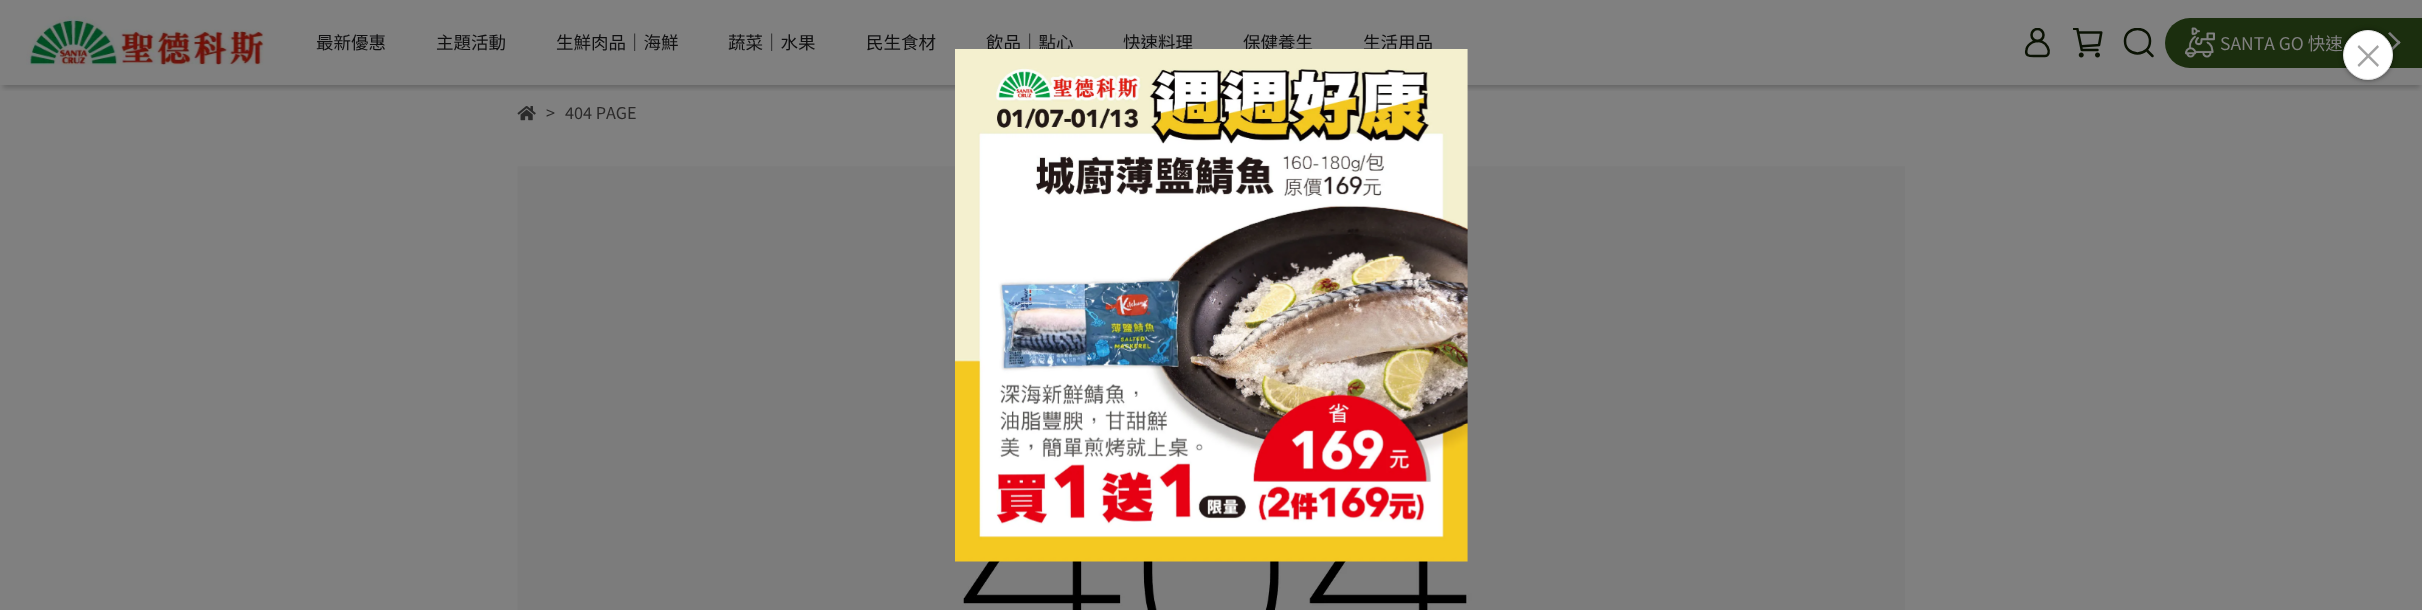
async function draw(canvas) {
	canvas.width = 2422;
	canvas.height = 610;
	const c = canvas.getContext('2d');
	c.miterLimit = 4;
	c.fontKerning = 'none';
	async function loadImage(src) {
		const img = new Image();
		img.src = src;
		await img.decode();
		return img;
	}

	c.fillStyle = '#808080';
	c.fillRect(0, 0, 2422, 610);
	c.save();
	c.beginPath();
	c.rect(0, 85, 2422, 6);
	c.clip();
	c.fillStyle = '#00000033';
	c.filter = 'blur(2.5px)';
	c.beginPath();
	c.rect(3, 8, 2417, 80);
	c.fill();
	c.filter = 'none';
	c.restore();
	c.font = '17.5px Noto Sans TC';
	c.fillStyle = '#101011';
	for (const [text, x, y] of [
		['飲品｜點心', 986, 49],
		['快速料理', 1123, 49],
		['保健養生', 1243, 49],
		['生活用品', 1363, 49],
	]) {
		c.fillText(text, x, y);
	}
	c.drawImage(await loadImage('img6.png'), 517, 166, 1388, 444);
	c.drawImage(await loadImage('img1.png'), 955, 49, 513, 513);
	c.fillStyle = '#1b2e0e';
	c.beginPath();
	c.roundRect(2165, 18, 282, 50, 25);
	c.fill();
	c.fillStyle = '#808080';
	c.beginPath();
	c.moveTo(2388, 33.5);
	c.lineTo(2390, 32);
	c.lineTo(2400.5, 42.5);
	c.lineTo(2399, 44.5);
	c.closePath();
	c.fill();
	c.beginPath();
	c.moveTo(2388, 51.5);
	c.lineTo(2399, 40.5);
	c.lineTo(2400.5, 42.5);
	c.lineTo(2390, 53);
	c.closePath();
	c.fill();
	c.fillStyle = '#00000080';
	c.filter = 'blur(2.5px)';
	c.beginPath();
	c.roundRect(2343, 30, 50, 50, 25);
	c.fill();
	c.filter = 'none';
	c.fillStyle = '#fff';
	c.beginPath();
	c.arc(2368, 55, 24.5, 0, 2 * Math.PI);
	c.fill();
	c.strokeStyle = '#e2e2e2';
	c.stroke();
	c.fillStyle = '#a3a3a3';
	c.beginPath();
	c.moveTo(2359, 45);
	c.lineTo(2379, 65);
	c.lineTo(2377.5, 67);
	c.lineTo(2357.5, 47);
	c.closePath();
	c.fill();
	c.beginPath();
	c.moveTo(2357.5, 65);
	c.lineTo(2377.5, 45);
	c.lineTo(2379, 47);
	c.lineTo(2359, 67);
	c.closePath();
	c.fill();
	c.drawImage(await loadImage('img2.png'), 26, 16, 238, 49);
	c.fillStyle = '#101011';
	for (const [text, x, y] of [
		['最新優惠', 316, 49],
		['主題活動', 436, 49],
		['生鮮肉品｜海鮮', 556, 49],
		['蔬菜｜水果', 728, 49],
		['民生食材', 866, 49],
	]) {
		c.fillText(text, x, y);
	}
	c.save();
	c.beginPath();
	c.rect(2023, 28, 30, 30);
	c.clip();
	c.beginPath();
	c.arc(2037.5, 35, 6, 0, 2 * Math.PI);
	c.strokeStyle = '#0a1203';
	c.lineWidth = 2.5;
	c.stroke();
	c.restore();
	c.beginPath();
	c.moveTo(2044.5, 56);
	c.lineTo(2035, 56);
	c.bezierCurveTo(2029.5, 56, 2025, 56.5, 2026.5, 49.5);
	c.bezierCurveTo(2027, 46, 2030, 43.5, 2033, 42);
	c.bezierCurveTo(2047.5, 36.5, 2053.5, 56.5, 2044.5, 56);
	c.closePath();
	c.strokeStyle = '#0a1203';
	c.lineWidth = 2.5;
	c.stroke();
	c.drawImage(await loadImage('img3.png'), 2073, 28, 30, 30);
	c.save();
	c.beginPath();
	c.rect(2123, 28, 32, 30);
	c.clip();
	c.beginPath();
	c.moveTo(2150, 41);
	c.bezierCurveTo(2150, 57.5, 2125, 57.5, 2125, 41);
	c.bezierCurveTo(2125, 25, 2150, 25, 2150, 41);
	c.closePath();
	c.lineCap = 'round';
	c.lineJoin = 'round';
	c.stroke();
	c.restore();
	c.beginPath();
	c.moveTo(2147.5, 51);
	c.lineTo(2152.5, 56);
	c.lineCap = 'round';
	c.lineJoin = 'round';
	c.stroke();
	c.drawImage(await loadImage('img4.png'), 2185, 27, 30, 31);
	c.fillStyle = '#808080';
	c.fillText('SANTA GO 快速', 2220, 50);
	c.drawImage(await loadImage('img5.png'), 517, 106, 19, 15);
	c.font = '16.25px Noto Sans TC';
	c.fillStyle = '#2b2a2a';
	c.fillText('>', 546, 119);
	c.fillText('404 PAGE', 565, 119);
}

draw(document.querySelector('canvas'));
